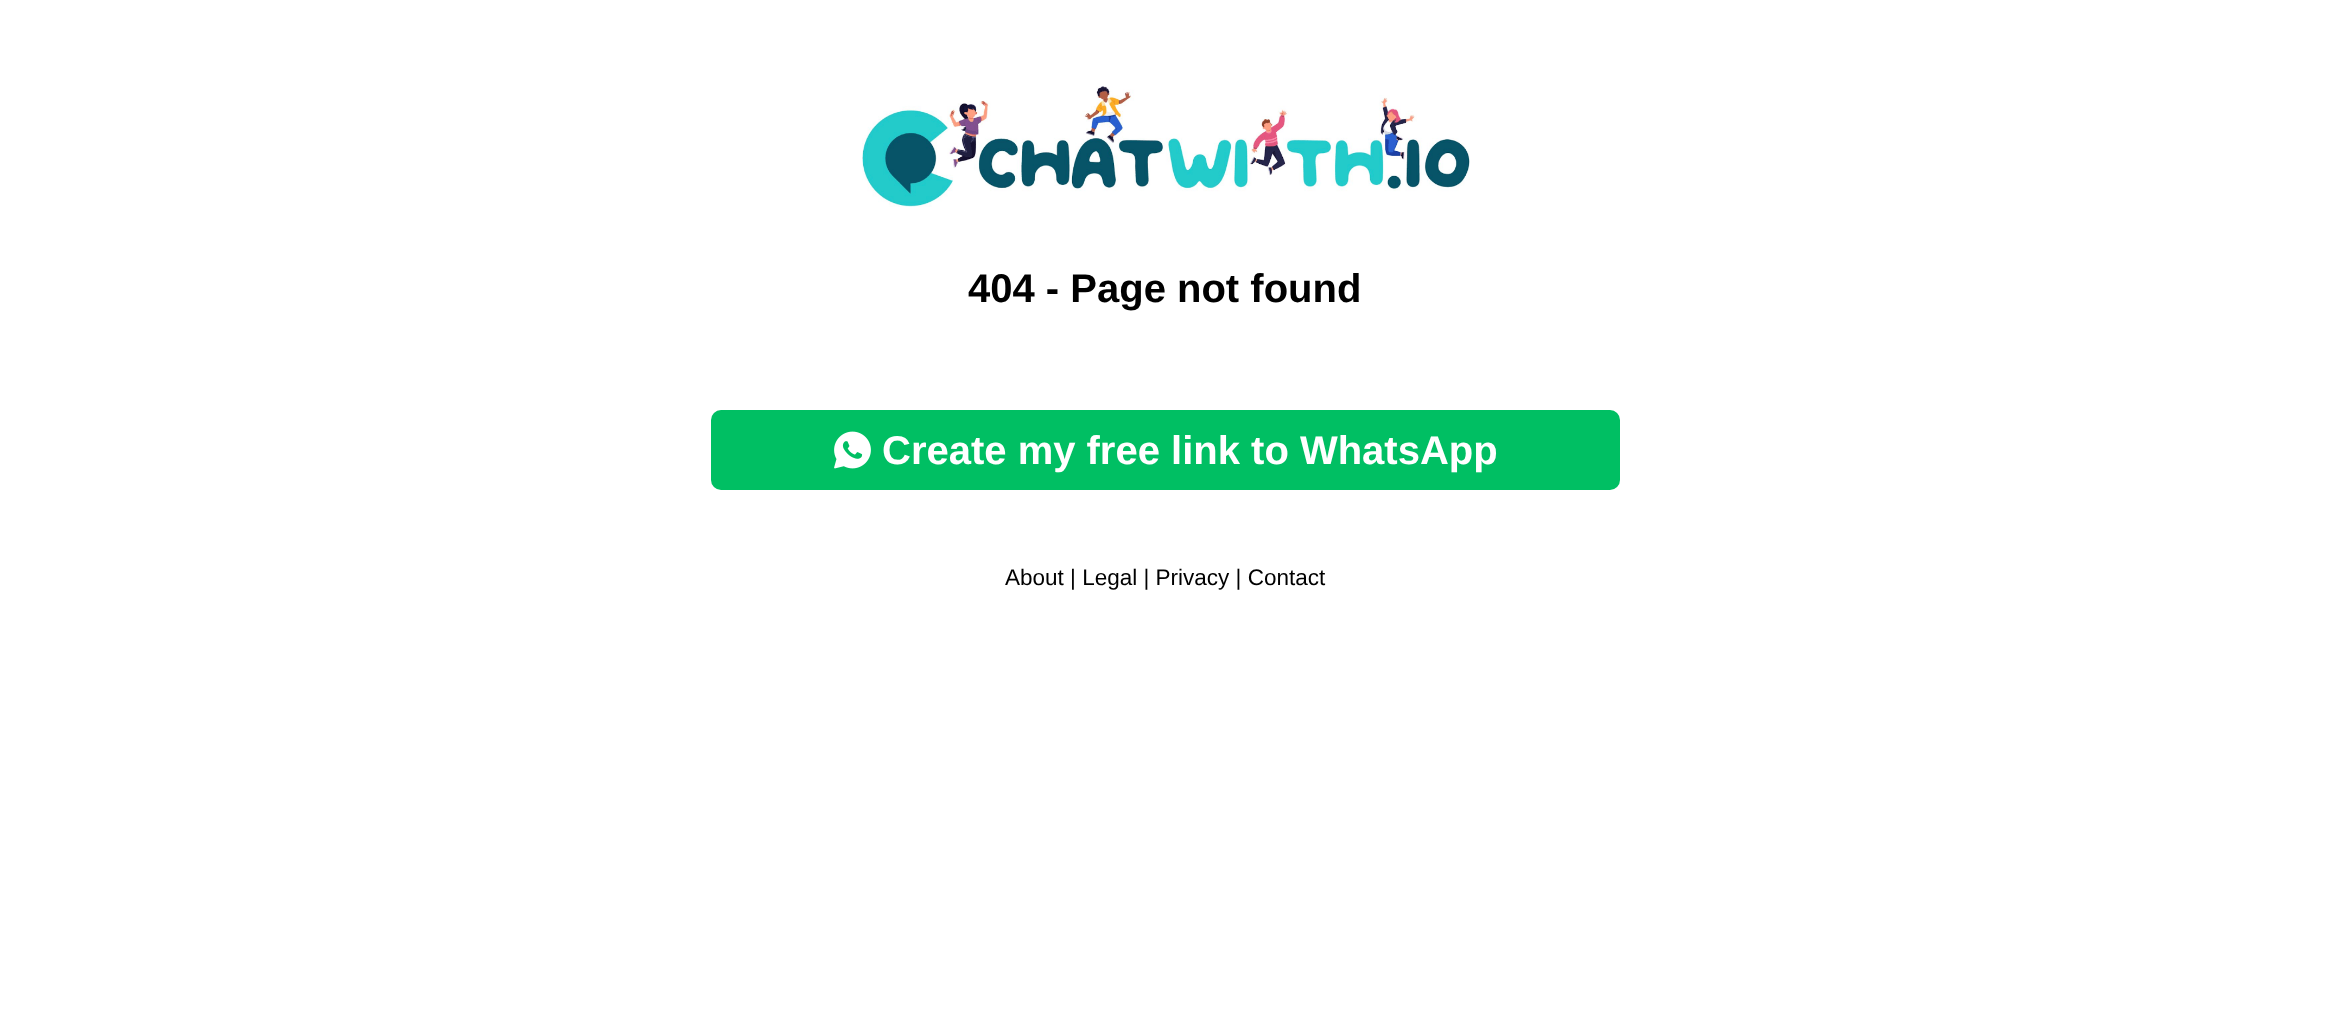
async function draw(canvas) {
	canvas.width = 2329;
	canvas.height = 1031;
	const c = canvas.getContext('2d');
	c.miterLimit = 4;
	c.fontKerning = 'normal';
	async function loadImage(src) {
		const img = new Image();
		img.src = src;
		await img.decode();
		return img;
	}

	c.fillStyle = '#fff';
	c.fillRect(0, 0, 2329, 1031);
	c.drawImage(await loadImage('img1.png'), 862, 86, 608, 121);
	c.font = 'bold 40px Liberation Sans';
	c.fillStyle = '#000';
	c.fillText('404 - Page not found', 968, 302);
	c.fillStyle = '#00bf63';
	c.beginPath();
	c.roundRect(711, 410, 909, 80, 10);
	c.fill();
	c.drawImage(await loadImage('img2.png'), 834, 431, 37, 38);
	c.fillStyle = '#fff';
	c.fillText('Create my free link to WhatsApp', 882, 464);
	c.font = '22.5px Liberation Sans';
	c.fillStyle = '#000';
	c.fillText('About | Legal | Privacy | Contact', 1005, 585);
}

draw(document.querySelector('canvas'));
